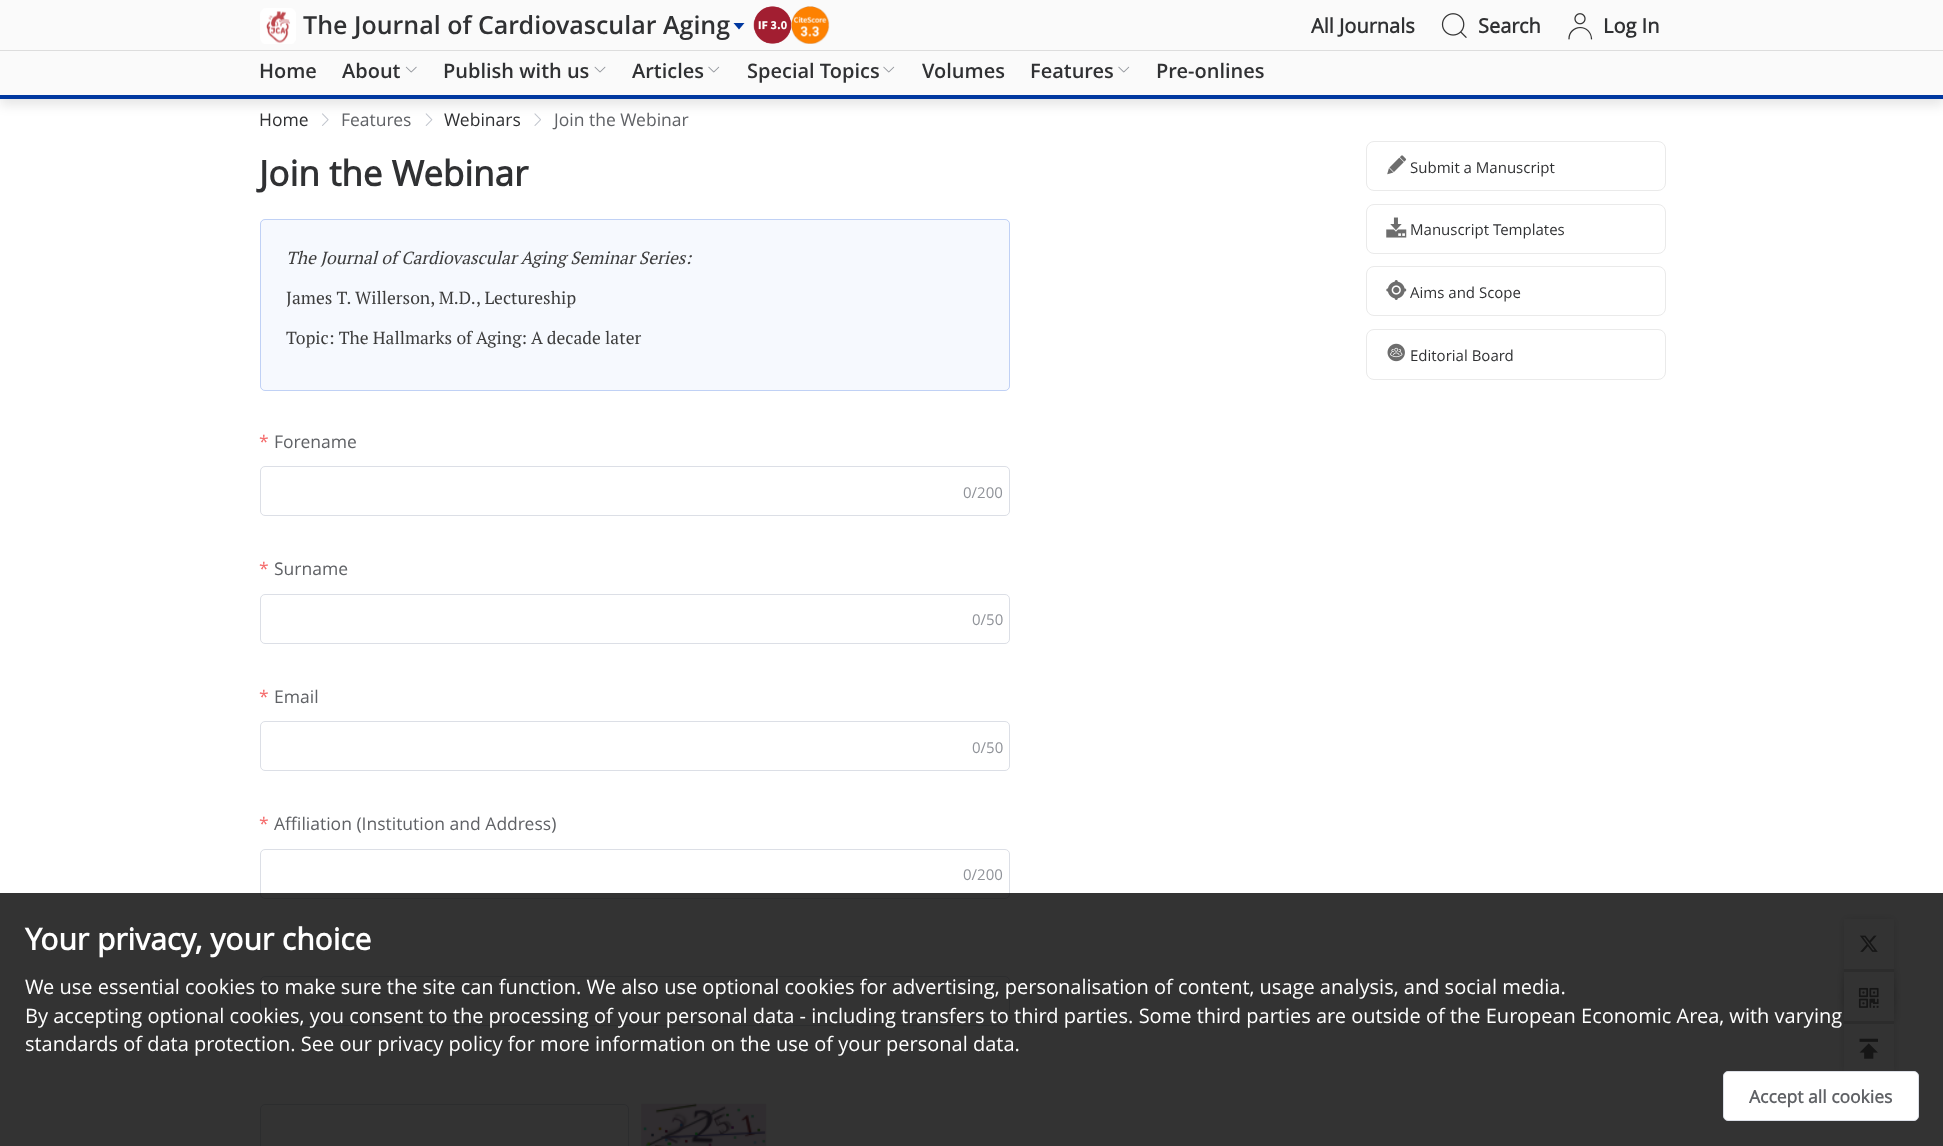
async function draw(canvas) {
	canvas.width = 1943;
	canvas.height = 1146;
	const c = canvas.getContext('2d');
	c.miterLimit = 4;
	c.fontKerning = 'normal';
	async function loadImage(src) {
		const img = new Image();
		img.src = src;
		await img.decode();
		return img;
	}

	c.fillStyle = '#fff';
	c.fillRect(0, 0, 1943, 1146);
	c.fillStyle = '#0000001a';
	c.filter = 'blur(6px)';
	c.beginPath();
	c.rect(0, 58, 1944, 47);
	c.fill();
	c.filter = 'none';
	c.fillStyle = '#fafafa';
	c.fillRect(0, 0, 1943, 50);
	c.fillStyle = '#ddd';
	c.fillRect(0, 50, 1943, 1);
	c.drawImage(await loadImage('img1.png'), 260, 8, 36, 36);
	c.font = '600 25px Open Sans';
	c.fillStyle = '#303133';
	c.fillText('The Journal of Cardiovascular Aging', 303, 34);
	c.fillStyle = '#0038a0';
	c.beginPath();
	c.moveTo(744.5, 23);
	c.lineTo(733.5, 23);
	c.lineTo(739, 29.5);
	c.closePath();
	c.fill();
	c.drawImage(await loadImage('img2.png'), 753, 6, 39, 38);
	c.drawImage(await loadImage('img3.png'), 791, 6, 39, 38);
	c.font = 'bold 20px Open Sans';
	c.fillStyle = '#303133';
	c.fillText('All Journals', 1311, 33);
	c.drawImage(await loadImage('img4.png'), 1441, 13, 26, 25);
	c.fillText('Search', 1478, 33);
	c.drawImage(await loadImage('img5.png'), 1568, 13, 25, 27);
	c.fillText('Log In', 1603, 33);
	c.fillStyle = '#fafafa';
	c.fillRect(0, 51, 1943, 44);
	c.fillStyle = '#0038a0';
	c.fillRect(0, 95, 1943, 4);
	c.font = '600 20px Open Sans';
	c.fillStyle = '#303133';
	c.fillText('Home', 259, 78);
	c.fillText('About', 342, 78);
	c.drawImage(await loadImage('img6.png'), 405, 66, 12, 7);
	c.fillText('Publish with us', 443, 78);
	c.drawImage(await loadImage('img7.png'), 594, 66, 12, 7);
	c.fillText('Articles', 632, 78);
	c.drawImage(await loadImage('img8.png'), 708, 66, 12, 7);
	c.fillText('Special Topics', 747, 78);
	c.drawImage(await loadImage('img8.png'), 883, 66, 12, 7);
	c.fillText('Volumes', 922, 78);
	c.fillText('Features', 1030, 78);
	c.drawImage(await loadImage('img8.png'), 1118, 66, 12, 7);
	c.fillText('Pre-onlines', 1156, 78);
	c.font = '17.5px Open Sans';
	c.fillText('Home', 259, 126);
	c.drawImage(await loadImage('img9.png'), 322, 113, 7, 13);
	c.fillStyle = '#606266';
	c.fillText('Features', 341, 126);
	c.drawImage(await loadImage('img10.png'), 425, 113, 8, 13);
	c.fillStyle = '#303133';
	c.fillText('Webinars', 444, 126);
	c.drawImage(await loadImage('img11.png'), 534, 113, 7, 13);
	c.fillStyle = '#606266';
	c.fillText('Join the Webinar', 554, 126);
	c.font = 'bold 35px Open Sans';
	c.fillStyle = '#303133';
	c.fillText('Join the Webinar', 259, 186);
	c.fillStyle = '#f6f9fe';
	c.beginPath();
	c.roundRect(260, 219, 750, 172, 5);
	c.fill();
	c.beginPath();
	c.roundRect(260.5, 219.5, 749, 171, 4.5);
	c.strokeStyle = '#4375e14d';
	c.stroke();
	c.font = 'italic 17.5px PT Serif';
	c.fillStyle = '#3d3d3d';
	c.fillText('The Journal of Cardiovascular Aging Seminar Series:', 286, 264);
	c.font = '17.5px PT Serif';
	c.fillText('James T. Willerson, M.D., Lectureship', 286, 304);
	c.fillText('Topic: The Hallmarks of Aging: A decade later', 286, 344);
	c.font = '17.5px Open Sans';
	c.fillStyle = '#f56c6c';
	c.fillText('*', 259, 448);
	c.fillStyle = '#606266';
	c.fillText('Forename', 274, 448);
	c.beginPath();
	c.roundRect(260.5, 466.5, 749, 49, 4.5);
	c.strokeStyle = '#dcdfe6';
	c.stroke();
	c.font = '15px Open Sans';
	c.fillStyle = '#909399';
	c.fillText('0/200', 963, 498);
	c.font = '17.5px Open Sans';
	c.fillStyle = '#f56c6c';
	c.fillText('*', 259, 575);
	c.fillStyle = '#606266';
	c.fillText('Surname', 274, 575);
	c.beginPath();
	c.roundRect(260.5, 594.5, 749, 49, 4.5);
	c.stroke();
	c.font = '15px Open Sans';
	c.fillStyle = '#909399';
	c.fillText('0/50', 972, 625);
	c.font = '17.5px Open Sans';
	c.fillStyle = '#f56c6c';
	c.fillText('*', 259, 703);
	c.fillStyle = '#606266';
	c.fillText('Email', 274, 703);
	c.beginPath();
	c.roundRect(260.5, 721.5, 749, 49, 4.5);
	c.stroke();
	c.font = '15px Open Sans';
	c.fillStyle = '#909399';
	c.fillText('0/50', 972, 753);
	c.font = '17.5px Open Sans';
	c.fillStyle = '#f56c6c';
	c.fillText('*', 259, 830);
	c.fillStyle = '#606266';
	c.fillText('Affiliation (Institution and Address)', 274, 830);
	c.beginPath();
	c.roundRect(260.5, 849.5, 749, 49, 4.5);
	c.stroke();
	c.font = '15px Open Sans';
	c.fillStyle = '#909399';
	c.fillText('0/200', 963, 880);
	c.beginPath();
	c.roundRect(260.5, 976.5, 749, 49, 4.5);
	c.stroke();
	c.beginPath();
	c.roundRect(260.5, 1104.5, 368, 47, 4.5);
	c.stroke();
	c.drawImage(await loadImage('img12.png'), 641, 1103, 126, 43);
	c.beginPath();
	c.roundRect(1366.5, 141.5, 299, 49, 7.5);
	c.strokeStyle = '#eaeaea';
	c.stroke();
	c.drawImage(await loadImage('img13.png'), 1387, 155, 20, 20);
	c.fillStyle = '#303133';
	c.fillText('Submit a Manuscript', 1410, 173);
	c.beginPath();
	c.roundRect(1366.5, 204.5, 299, 49, 7.5);
	c.stroke();
	c.drawImage(await loadImage('img14.png'), 1386, 217, 21, 21);
	c.fillText('Manuscript Templates', 1410, 235);
	c.beginPath();
	c.roundRect(1366.5, 266.5, 299, 49, 7.5);
	c.stroke();
	c.drawImage(await loadImage('img15.png'), 1386, 280, 21, 20);
	c.fillText('Aims and Scope', 1410, 298);
	c.beginPath();
	c.roundRect(1366.5, 329.5, 299, 50, 7.5);
	c.stroke();
	c.drawImage(await loadImage('img16.png'), 1387, 343, 18, 19);
	c.fillText('Editorial Board', 1410, 361);
	c.fillStyle = '#0000001f';
	c.filter = 'blur(4px)';
	c.beginPath();
	c.roundRect(1844, 971, 50, 50, 25);
	c.fill();
	c.filter = 'none';
	c.filter = 'blur(4px)';
	c.beginPath();
	c.rect(1844, 919, 50, 155);
	c.fill();
	c.filter = 'none';
	c.filter = 'blur(4px)';
	c.beginPath();
	c.rect(1844, 971, 50, 50);
	c.fill();
	c.filter = 'none';
	c.fillStyle = '#fff';
	c.fillRect(1844, 919, 50, 152);
	c.fillStyle = '#ddd';
	c.fillRect(1844, 969, 50, 3);
	c.drawImage(await loadImage('img17.png'), 1859, 935, 19, 17);
	c.fillRect(1844, 1021, 50, 3);
	c.drawImage(await loadImage('img18.png'), 1858, 987, 21, 21);
	c.drawImage(await loadImage('img19.png'), 1859, 1038, 19, 21);
	c.fillStyle = '#000000cc';
	c.fillRect(0, 893, 1943, 253);
	c.font = 'bold 30px Open Sans';
	c.fillStyle = '#fff';
	c.fillText('Your privacy, your choice', 25, 950);
	c.font = '20px Open Sans';
	for (const [text, x, y] of [
		['We use essential cookies to make sure the site can function. We also use optional cookies for advertising, personalisation of content, usage analysis, and social media.', 25, 994],
		['By accepting optional cookies, you consent to the processing of your personal data - including transfers to third parties. Some third parties are outside of the European Economic Area, with varying', 25, 1023],
		['standards of data protection. See our privacy policy for more information on the use of your personal data.', 25, 1051],
	]) {
		c.fillText(text, x, y);
	}
	c.beginPath();
	c.roundRect(1723.5, 1071.5, 195, 49, 4.5);
	c.fill();
	c.strokeStyle = '#dcdfe6';
	c.stroke();
	c.font = 'bold 17.5px Open Sans';
	c.fillStyle = '#606266';
	c.fillText('Accept all cookies', 1749, 1103);
}

draw(document.querySelector('canvas'));
